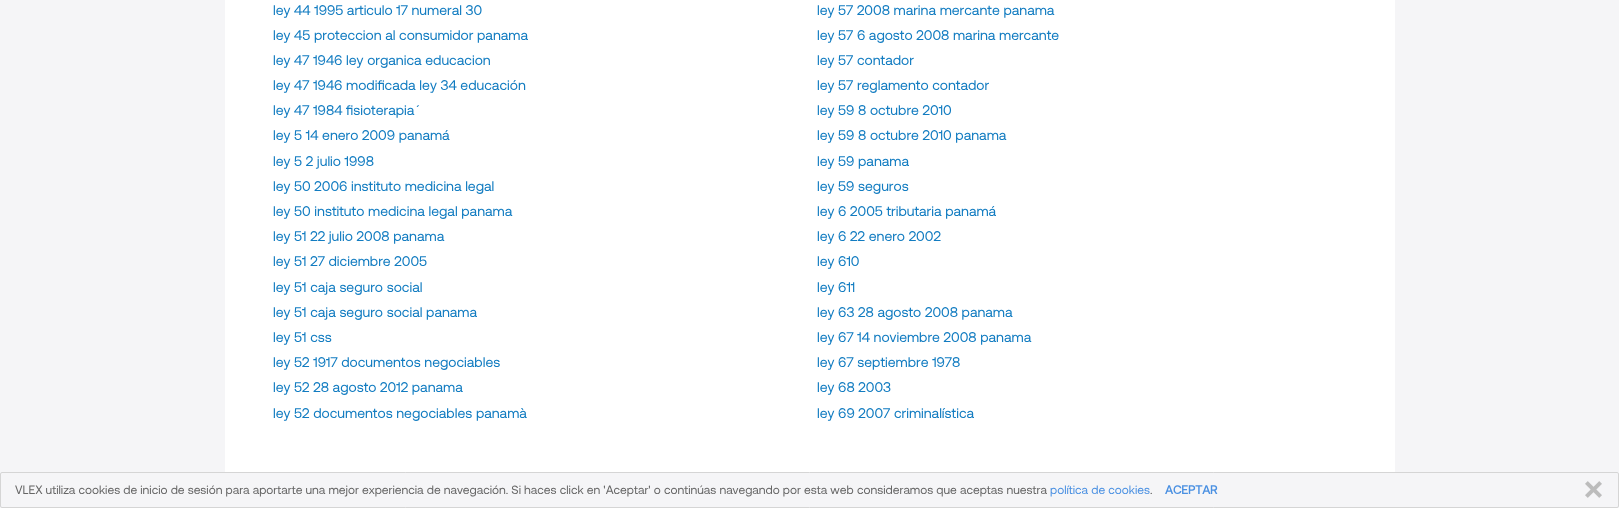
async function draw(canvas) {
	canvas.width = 1619;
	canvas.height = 508;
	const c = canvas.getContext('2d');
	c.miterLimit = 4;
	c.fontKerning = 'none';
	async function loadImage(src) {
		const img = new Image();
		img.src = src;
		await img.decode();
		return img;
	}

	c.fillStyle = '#f5f5f7';
	c.fillRect(0, 0, 1619, 508);
	c.fillStyle = '#fff';
	c.fillRect(225, 0, 1170, 472);
	c.font = '14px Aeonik';
	c.fillStyle = '#127cc1';
	for (const [text, x, y] of [
		['ley 44 1995 articulo 17 numeral 30', 273, 15],
		['ley 57 2008 marina mercante panama', 817, 15],
		['ley 45 proteccion al consumidor panama', 273, 40],
		['ley 57 6 agosto 2008 marina mercante', 817, 40],
		['ley 47 1946 ley organica educacion', 273, 65],
		['ley 57 contador', 817, 65],
		['ley 47 1946 modificada ley 34 educación', 273, 90],
		['ley 57 reglamento contador', 817, 90],
		['ley 47 1984 fisioterapia´', 273, 115],
		['ley 59 8 octubre 2010', 817, 115],
		['ley 5 14 enero 2009 panamá', 273, 140],
		['ley 59 8 octubre 2010 panama', 817, 140],
		['ley 5 2 julio 1998', 273, 166],
		['ley 59 panama', 817, 166],
		['ley 50 2006 instituto medicina legal', 273, 191],
		['ley 59 seguros', 817, 191],
		['ley 50 instituto medicina legal panama', 273, 216],
		['ley 6 2005 tributaria panamá', 817, 216],
		['ley 51 22 julio 2008 panama', 273, 241],
		['ley 6 22 enero 2002', 817, 241],
		['ley 51 27 diciembre 2005', 273, 266],
		['ley 610', 817, 266],
		['ley 51 caja seguro social', 273, 292],
		['ley 611', 817, 292],
		['ley 51 caja seguro social panama', 273, 317],
		['ley 63 28 agosto 2008 panama', 817, 317],
		['ley 51 css', 273, 342],
		['ley 67 14 noviembre 2008 panama', 817, 342],
		['ley 52 1917 documentos negociables', 273, 367],
		['ley 67 septiembre 1978', 817, 367],
		['ley 52 28 agosto 2012 panama', 273, 392],
		['ley 68 2003', 817, 392],
		['ley 52 documentos negociables panamà', 273, 418],
		['ley 69 2007 criminalística', 817, 418],
	]) {
		c.fillText(text, x, y);
	}
	c.beginPath();
	c.roundRect(0.5, 472.5, 1618, 35, 1.5);
	c.strokeStyle = '#d5d5d5';
	c.stroke();
	c.font = '12px Aeonik';
	c.fillStyle = '#666';
	c.fillText('VLEX utiliza cookies de inicio de sesión para aportarte una mejor experiencia de navegación. Si haces click en \'Aceptar\' o continúas navegando por esta web', 15, 494);
	c.fillText('consideramos que aceptas nuestra', 857, 494);
	c.fillStyle = '#4a90e2';
	c.fillText('política de cookies', 1050, 494);
	c.fillStyle = '#666';
	c.fillText('.', 1150, 494);
	c.font = 'bold 12px Aeonik';
	c.fillStyle = '#4a90e2';
	c.fillText('ACEPTAR', 1165, 494);
	c.drawImage(await loadImage('img1.png'), 1585, 481, 17, 17);
}

draw(document.querySelector('canvas'));
